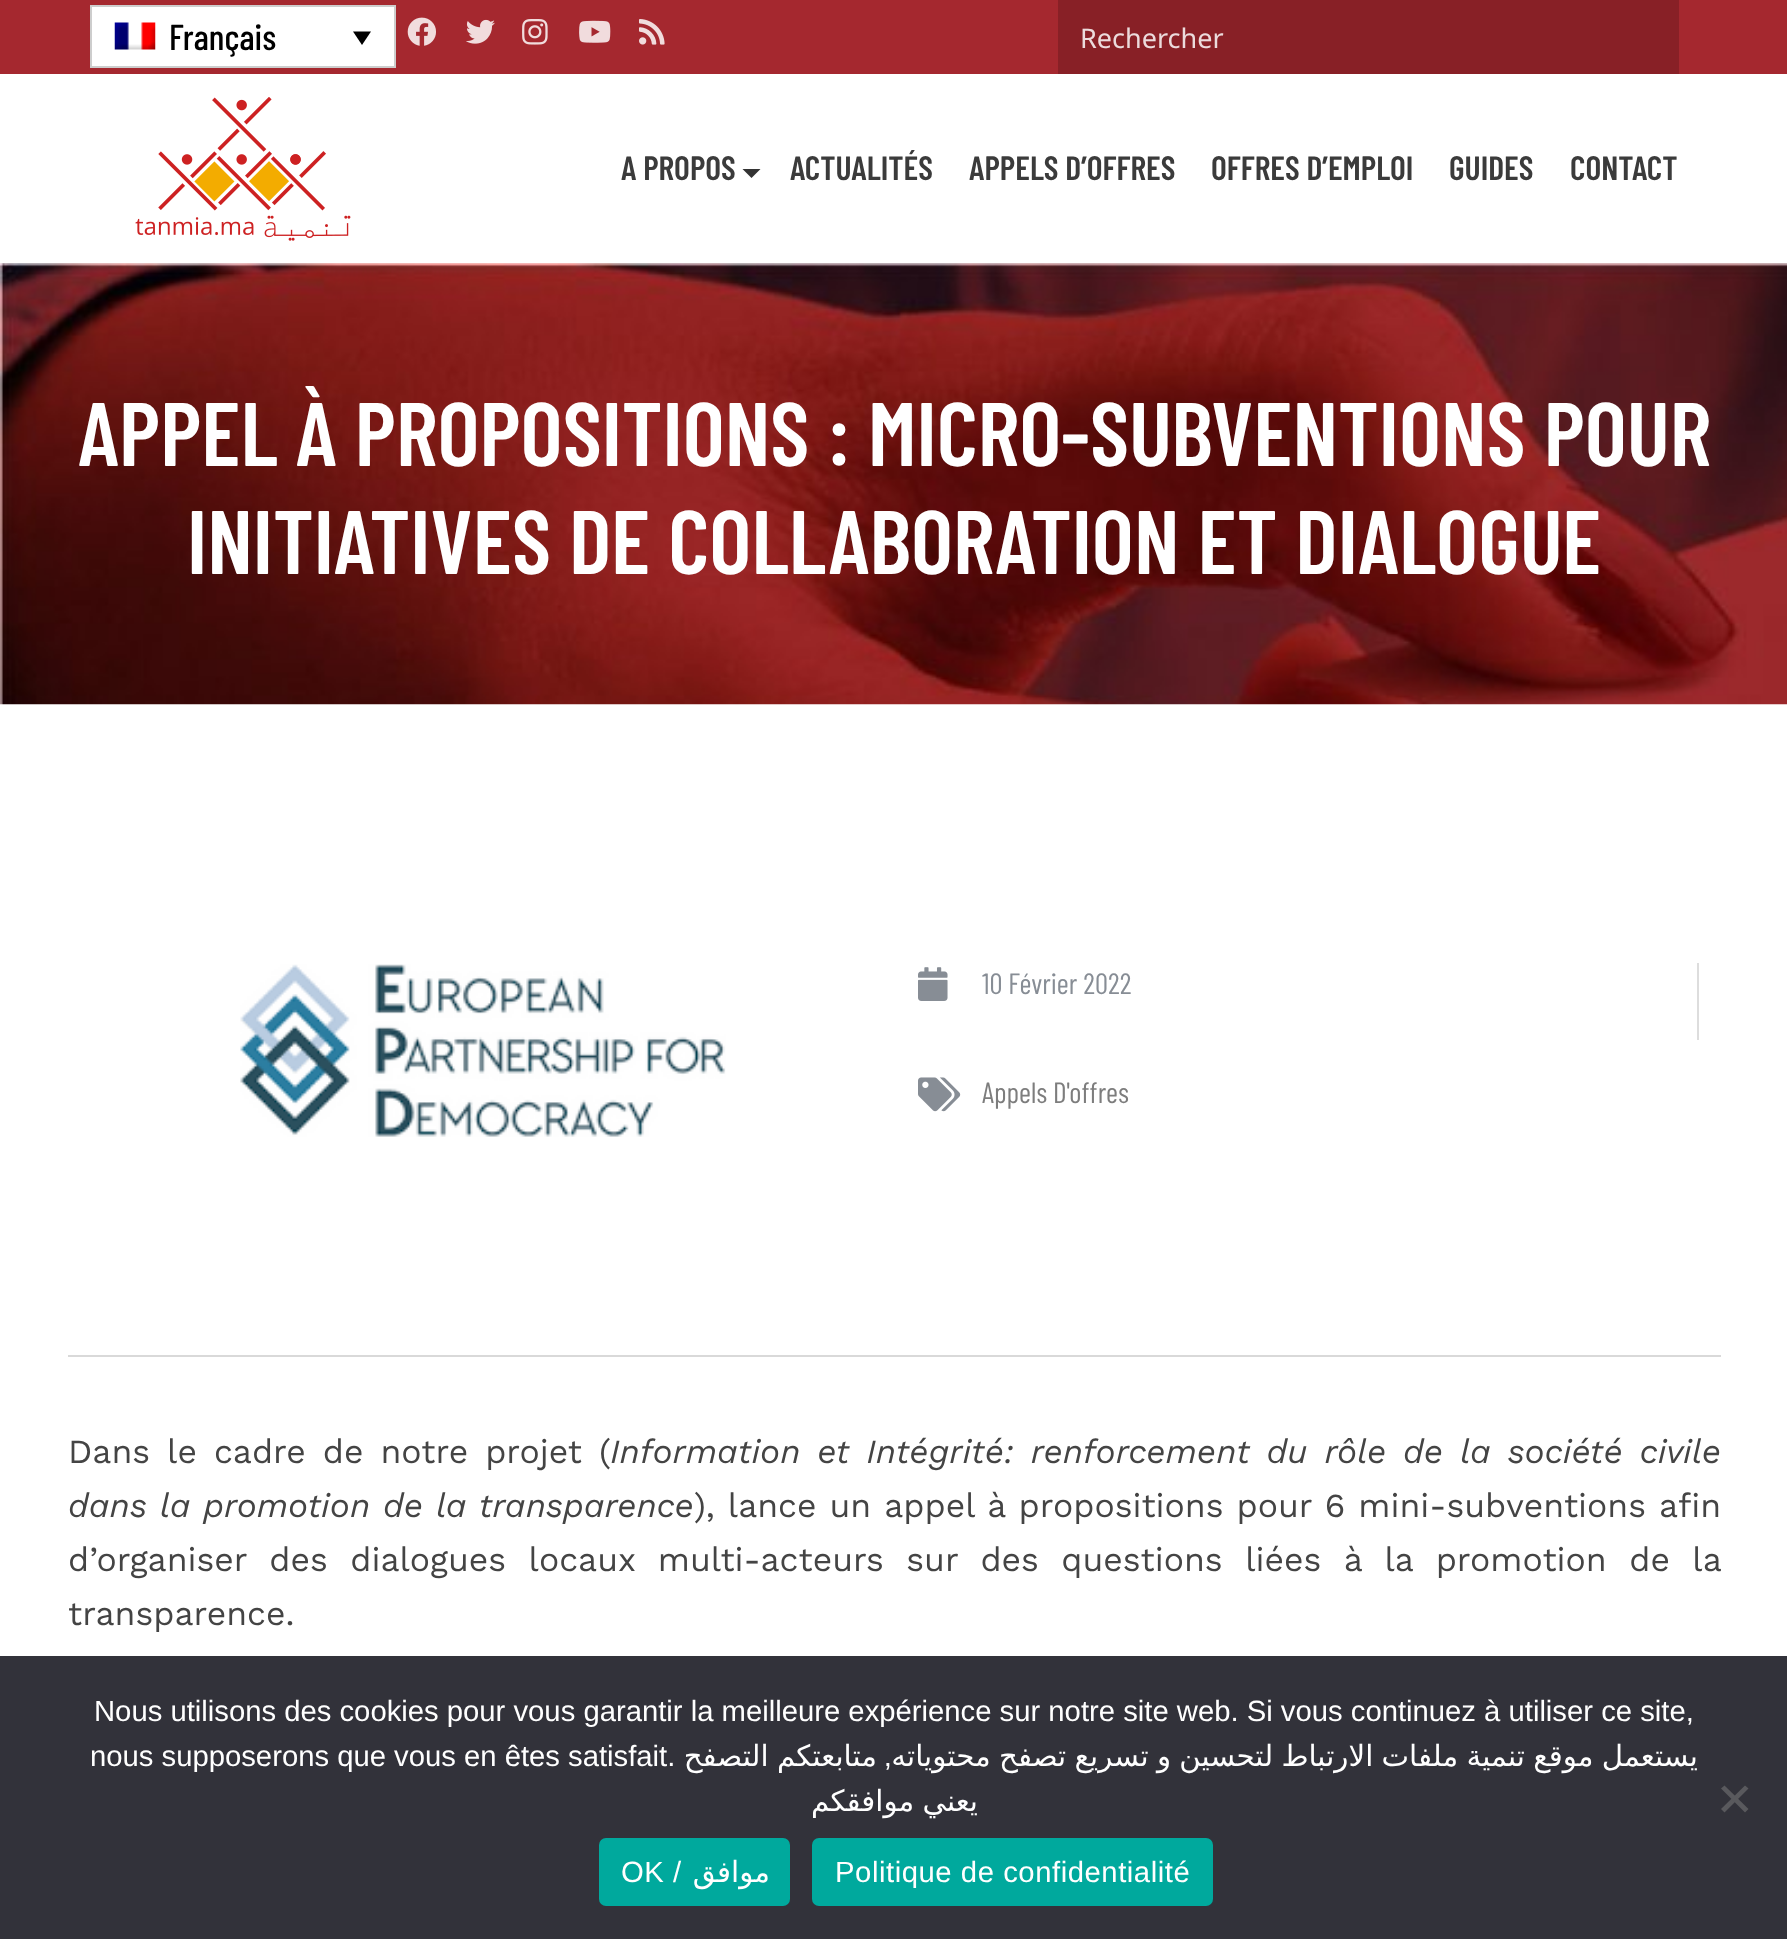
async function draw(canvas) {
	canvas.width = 1787;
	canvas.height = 1939;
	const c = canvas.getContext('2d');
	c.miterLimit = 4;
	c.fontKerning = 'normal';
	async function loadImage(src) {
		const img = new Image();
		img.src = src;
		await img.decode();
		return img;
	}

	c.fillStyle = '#fff';
	c.fillRect(0, 0, 1787, 1939);
	c.fillStyle = '#a5282f';
	c.fillRect(0, 0, 1787, 74);
	c.fillStyle = '#fff';
	c.beginPath();
	c.rect(91, 6, 304, 61);
	c.fill();
	c.strokeStyle = '#cdcdcd';
	c.lineWidth = 2;
	c.stroke();
	c.drawImage(await loadImage('img1.png'), 114, 22, 42, 28);
	c.font = '500 36px Barlow Condensed';
	c.fillStyle = '#000';
	c.fillText('Français', 169, 50);
	c.beginPath();
	c.moveTo(353, 31.5);
	c.lineTo(371, 31.5);
	c.lineTo(362, 45);
	c.closePath();
	c.fill();
	c.drawImage(await loadImage('img2.png'), 407, 17, 29, 29);
	c.drawImage(await loadImage('img3.png'), 466, 19, 29, 25);
	c.drawImage(await loadImage('img4.png'), 522, 19, 26, 26);
	c.drawImage(await loadImage('img5.png'), 579, 20, 32, 23);
	c.drawImage(await loadImage('img6.png'), 639, 19, 26, 26);
	c.fillStyle = '#882026';
	c.fillRect(1058, 0, 621, 74);
	c.font = '27px Noto Sans';
	c.fillStyle = '#ecdbdc';
	c.fillText('Rechercher', 1080, 48);
	c.drawImage(await loadImage('img7.png'), 135, 97, 216, 144);
	c.font = '600 33.75px Barlow Condensed';
	c.fillStyle = '#3b3b3b';
	c.fillText('A PROPOS', 621, 180);
	c.fillStyle = '#333';
	c.beginPath();
	c.moveTo(742.5, 169);
	c.lineTo(760.5, 169);
	c.lineTo(751.5, 178);
	c.closePath();
	c.fill();
	c.fillStyle = '#3b3b3b';
	for (const [text, x, y] of [
		['ACTUALITÉS', 790, 180],
		['APPELS D’OFFRES', 969, 180],
		['OFFRES D’EMPLOI', 1211, 180],
		['GUIDES', 1449, 180],
		['CONTACT', 1570, 180],
	]) {
		c.fillText(text, x, y);
	}
	c.drawImage(await loadImage('img8.png'), 0, 263, 1787, 442);
	c.font = '600 90px Barlow Condensed';
	c.fillStyle = '#fff';
	c.fillText('APPEL À PROPOSITIONS : MICRO-SUBVENTIONS POUR', 78, 466);
	c.fillText('INITIATIVES DE COLLABORATION ET DIALOGUE', 187, 574);
	c.drawImage(await loadImage('img9.png'), 240, 964, 486, 173);
	c.fillStyle = '#ddd';
	c.fillRect(1697, 963, 2, 77);
	c.drawImage(await loadImage('img10.png'), 918, 967, 30, 34);
	c.font = '29.25px Barlow Condensed';
	c.fillStyle = '#878d95';
	c.fillText('10 Février 2022', 982, 994);
	c.drawImage(await loadImage('img11.png'), 918, 1077, 43, 35);
	c.fillStyle = '#7d7d7d';
	c.fillText('Appels D\'offres', 982, 1103);
	c.fillStyle = '#d9d9d9';
	c.fillRect(68, 1355, 1653, 2);
	c.wordSpacing = '5.5px';
	c.font = '33.75px Work Sans';
	c.fillStyle = '#444';
	c.fillText('Dans le cadre de notre projet (', 68, 1463);
	c.font = 'italic 33.75px Work Sans';
	c.fillText('Information et Intégrité: renforcement du rôle de la société civile', 610, 1463);
	c.wordSpacing = '1.5px';
	c.fillText('dans la promotion de la transparence', 68, 1517);
	c.font = '33.75px Work Sans';
	c.fillText('), lance un appel à propositions pour 6 mini-subventions afin', 694, 1517);
	c.wordSpacing = '11px';
	c.fillText('d’organiser des dialogues locaux multi-acteurs sur des questions liées à la promotion de la', 68, 1571);
	c.wordSpacing = '0px';
	c.fillText('transparence.', 68, 1625);
	c.fillStyle = '#32323a';
	c.fillRect(0, 1656, 1787, 283);
	c.font = '29.25px Liberation Sans';
	c.fillStyle = '#fff';
	c.fillText('Nous utilisons des cookies pour vous garantir la meilleure expérience sur notre site web. Si vous continuez à utiliser ce site,', 94, 1721);
	c.fillText('nous supposerons que vous en êtes satisfait.', 90, 1766);
	c.wordSpacing = '-1px';
	c.direction = 'rtl';
	c.font = '29.25px DejaVu Sans';
	c.fillText('متابعتكم التصفح', 877, 1766);
	c.wordSpacing = '0px';
	c.font = '29.25px Liberation Sans';
	c.fillText(',', 892, 1766);
	c.wordSpacing = '-1px';
	c.font = '29.25px DejaVu Sans';
	c.fillText('يستعمل موقع تنمية ملفات الارتباط لتحسين و تسريع تصفح محتوياته', 1698, 1766);
	c.fillText('يعني موافقكم', 978, 1811);
	c.fillStyle = '#59595d';
	c.beginPath();
	c.moveTo(1745, 1785.5);
	c.lineTo(1748.5, 1788.5);
	c.lineTo(1724.5, 1812.5);
	c.lineTo(1721, 1809);
	c.closePath();
	c.fill();
	c.beginPath();
	c.moveTo(1721, 1788.5);
	c.lineTo(1724.5, 1785.5);
	c.lineTo(1748.5, 1809);
	c.lineTo(1745, 1812.5);
	c.closePath();
	c.fill();
	c.fillStyle = '#00a99d';
	c.beginPath();
	c.roundRect(599, 1838, 191, 68, 7);
	c.fill();
	c.letterSpacing = '0.55px';
	c.wordSpacing = '0px';
	c.direction = 'ltr';
	c.font = '29.25px Liberation Sans';
	c.fillStyle = '#fff';
	c.fillText('OK /', 621, 1882);
	c.direction = 'rtl';
	c.font = '29.25px DejaVu Sans';
	c.fillText('موافق', 770, 1882);
	c.fillStyle = '#00a99d';
	c.beginPath();
	c.roundRect(812, 1838, 401, 68, 7);
	c.fill();
	c.direction = 'ltr';
	c.font = '29.25px Liberation Sans';
	c.fillStyle = '#fff';
	c.fillText('Politique de confidentialité', 835, 1882);
}

draw(document.querySelector('canvas'));
